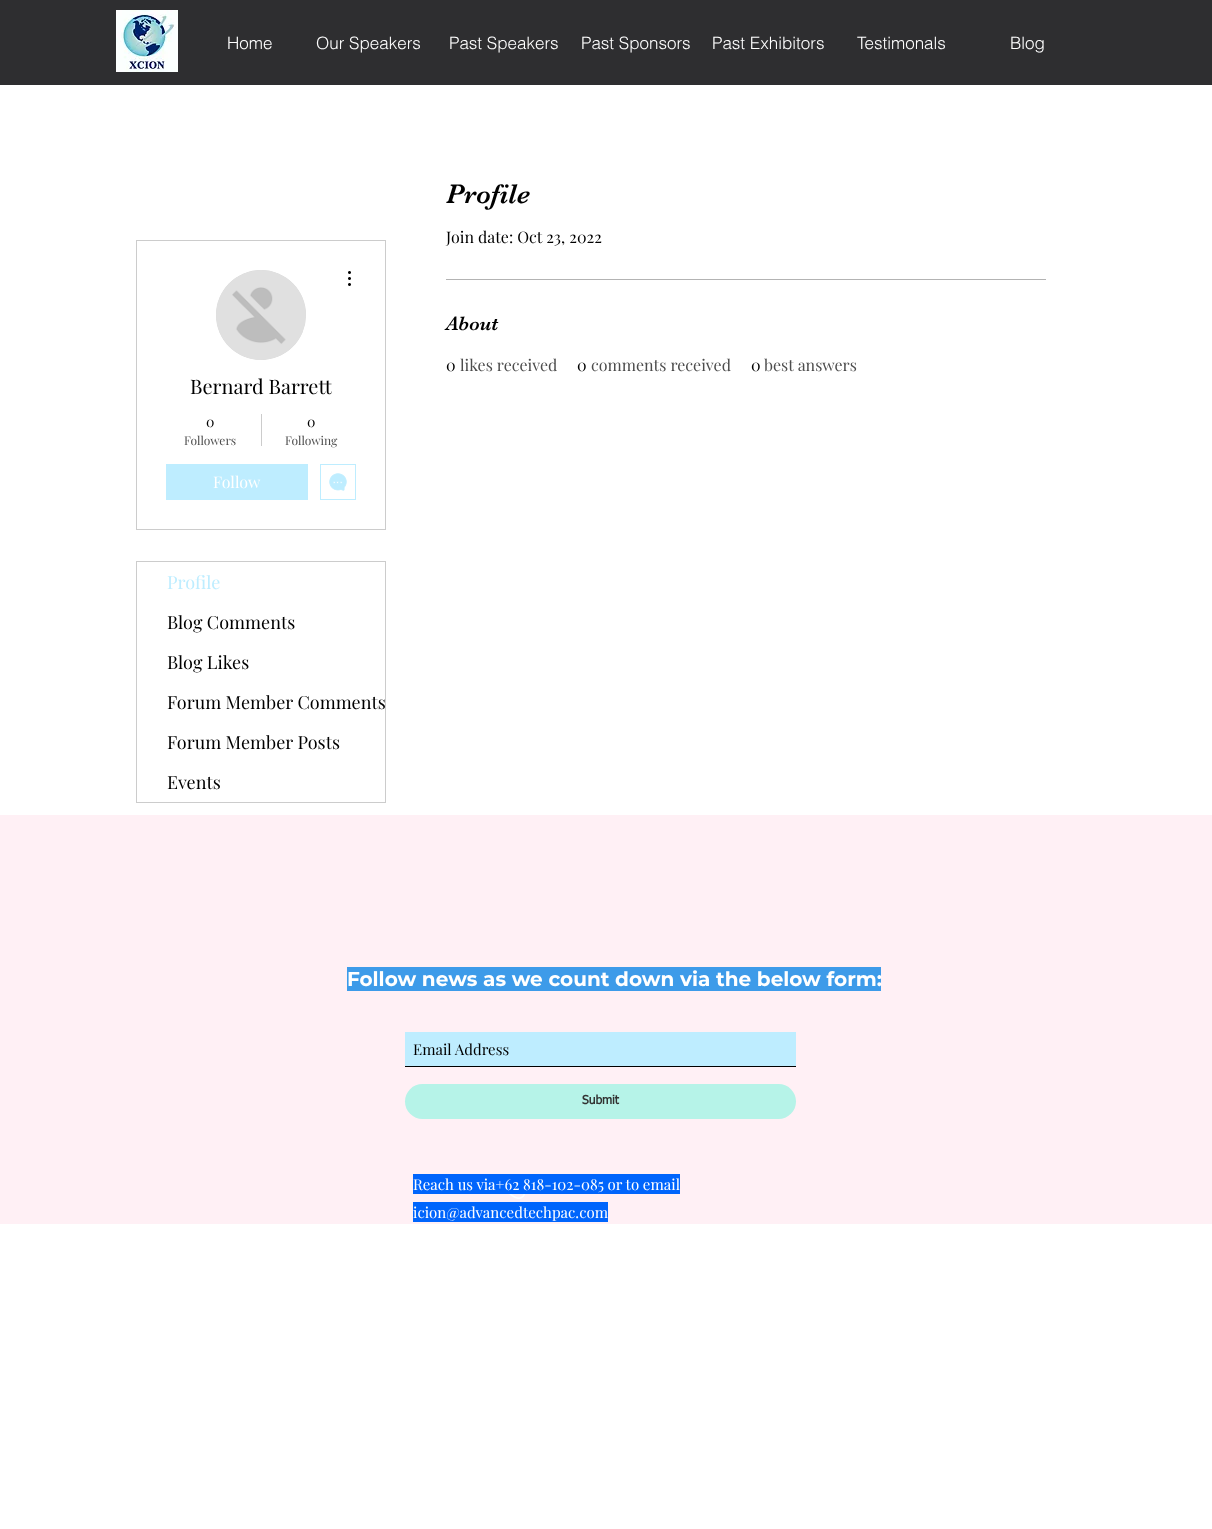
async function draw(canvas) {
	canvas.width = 1212;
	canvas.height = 1529;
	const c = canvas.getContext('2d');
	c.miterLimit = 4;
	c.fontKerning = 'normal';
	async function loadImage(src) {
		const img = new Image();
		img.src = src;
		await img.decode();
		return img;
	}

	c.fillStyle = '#fff';
	c.fillRect(0, 0, 1212, 1529);
	c.fillStyle = '#2e2e30';
	c.fillRect(0, 0, 1212, 85);
	c.drawImage(await loadImage('img1.png'), 116, 10, 62, 62);
	c.font = '300 17px helvetica';
	c.fillStyle = '#fff';
	for (const [text, x, y] of [
		['Home', 227, 49],
		['Our Speakers', 316, 49],
		['Past Speakers', 449, 49],
		['Past Sponsors', 581, 49],
		['Past Exhibitors', 712, 49],
		['Testimonals', 857, 49],
		['Blog', 1010, 49],
	]) {
		c.fillText(text, x, y);
	}
	c.font = '28px "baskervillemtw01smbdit"';
	c.fillStyle = '#000';
	c.fillText('Profile', 446, 203);
	c.font = '16px Playfair Display';
	c.fillText('Join date: Oct 23, 2022', 446, 243);
	c.fillStyle = '#b3b3b3';
	c.fillRect(446, 279, 600, 1);
	c.font = '20px "baskervillemtw01smbdit"';
	c.fillStyle = '#000';
	c.fillText('About', 446, 330);
	c.font = '16px Playfair Display';
	c.fillText('0', 446, 371);
	c.fillStyle = '#4d4d4d';
	c.fillText('likes received', 460, 371);
	c.fillStyle = '#000';
	c.fillText('0', 577, 371);
	c.fillStyle = '#4d4d4d';
	c.fillText('comments received', 591, 371);
	c.fillStyle = '#000';
	c.fillText('0', 751, 371);
	c.fillStyle = '#4d4d4d';
	c.fillText('best answers', 764, 371);
	c.strokeStyle = '#ccc';
	c.strokeRect(136.5, 240.5, 249, 289);
	c.fillStyle = '#d8d8d8';
	c.beginPath();
	c.arc(261, 315, 45, 0, 2 * Math.PI);
	c.fill();
	c.drawImage(await loadImage('img2.png'), 216, 270, 90, 90);
	c.drawImage(await loadImage('img3.png'), 348, 271, 3, 15);
	c.font = '20px Playfair Display';
	c.fillStyle = '#000';
	c.fillText('Bernard Barrett', 190, 394);
	c.font = '14px Playfair Display';
	c.fillText('0', 206, 427);
	c.font = '12px Playfair Display';
	c.fillStyle = '#4d4d4d';
	c.fillText('Followers', 184, 445);
	c.fillStyle = '#ccc';
	c.fillRect(261, 414, 1, 32);
	c.font = '14px Playfair Display';
	c.fillStyle = '#000';
	c.fillText('0', 307, 427);
	c.font = '12px Playfair Display';
	c.fillStyle = '#4d4d4d';
	c.fillText('Following', 285, 445);
	c.fillStyle = '#beedff';
	c.fillRect(166, 464, 142, 36);
	c.font = '16px Playfair Display';
	c.fillStyle = '#fff';
	c.fillText('Follow', 213, 488);
	c.strokeStyle = '#beedff';
	c.strokeRect(320.5, 464.5, 35, 35);
	c.drawImage(await loadImage('img4.png'), 329, 473, 18, 18);
	c.strokeStyle = '#ccc';
	c.strokeRect(136.5, 561.5, 249, 241);
	c.font = '18px Playfair Display';
	c.fillStyle = '#beedff';
	c.fillText('Profile', 167, 589);
	c.fillStyle = '#000';
	for (const [text, x, y] of [
		['Blog Comments', 167, 629],
		['Blog Likes', 167, 669],
		['Forum Member Comments', 167, 709],
		['Forum Member Posts', 167, 749],
		['Events', 167, 789],
	]) {
		c.fillText(text, x, y);
	}
	c.fillStyle = '#fff0f5';
	c.fillRect(0, 815, 1212, 409);
	c.fillStyle = '#3d9be9';
	c.fillRect(347, 967, 534, 24);
	c.font = 'bold 20px Montserrat';
	c.fillStyle = '#fff';
	c.fillText('Follow news as we count down via the below form:', 347, 986);
	c.fillStyle = '#beedff';
	c.fillRect(405, 1032, 391, 34);
	c.fillStyle = '#000';
	c.fillRect(405, 1066, 391, 1);
	c.font = '15px Playfair Display';
	c.fillText('Email Address', 413, 1055);
	c.fillStyle = '#b6f3e8';
	c.beginPath();
	c.roundRect(405, 1084, 391, 35, 17.5);
	c.fill();
	c.font = 'bold 12px tahoma';
	c.fillStyle = '#323232';
	c.fillText('Submit', 582, 1104);
	c.fillStyle = '#0065fc';
	c.fillRect(413, 1174, 267, 20);
	c.font = '15px Playfair Display';
	c.fillStyle = '#fff';
	c.fillText('Reach us via+62 818-102-085 or to email', 413, 1190);
	c.fillStyle = '#0065fc';
	c.fillRect(413, 1202, 195, 20);
	c.fillStyle = '#fff';
	c.fillText('icion@advancedtechpac.com', 413, 1218);
	c.drawImage(await loadImage('img5.png'), 509, 1194, 16, 5);
}

draw(document.querySelector('canvas'));
